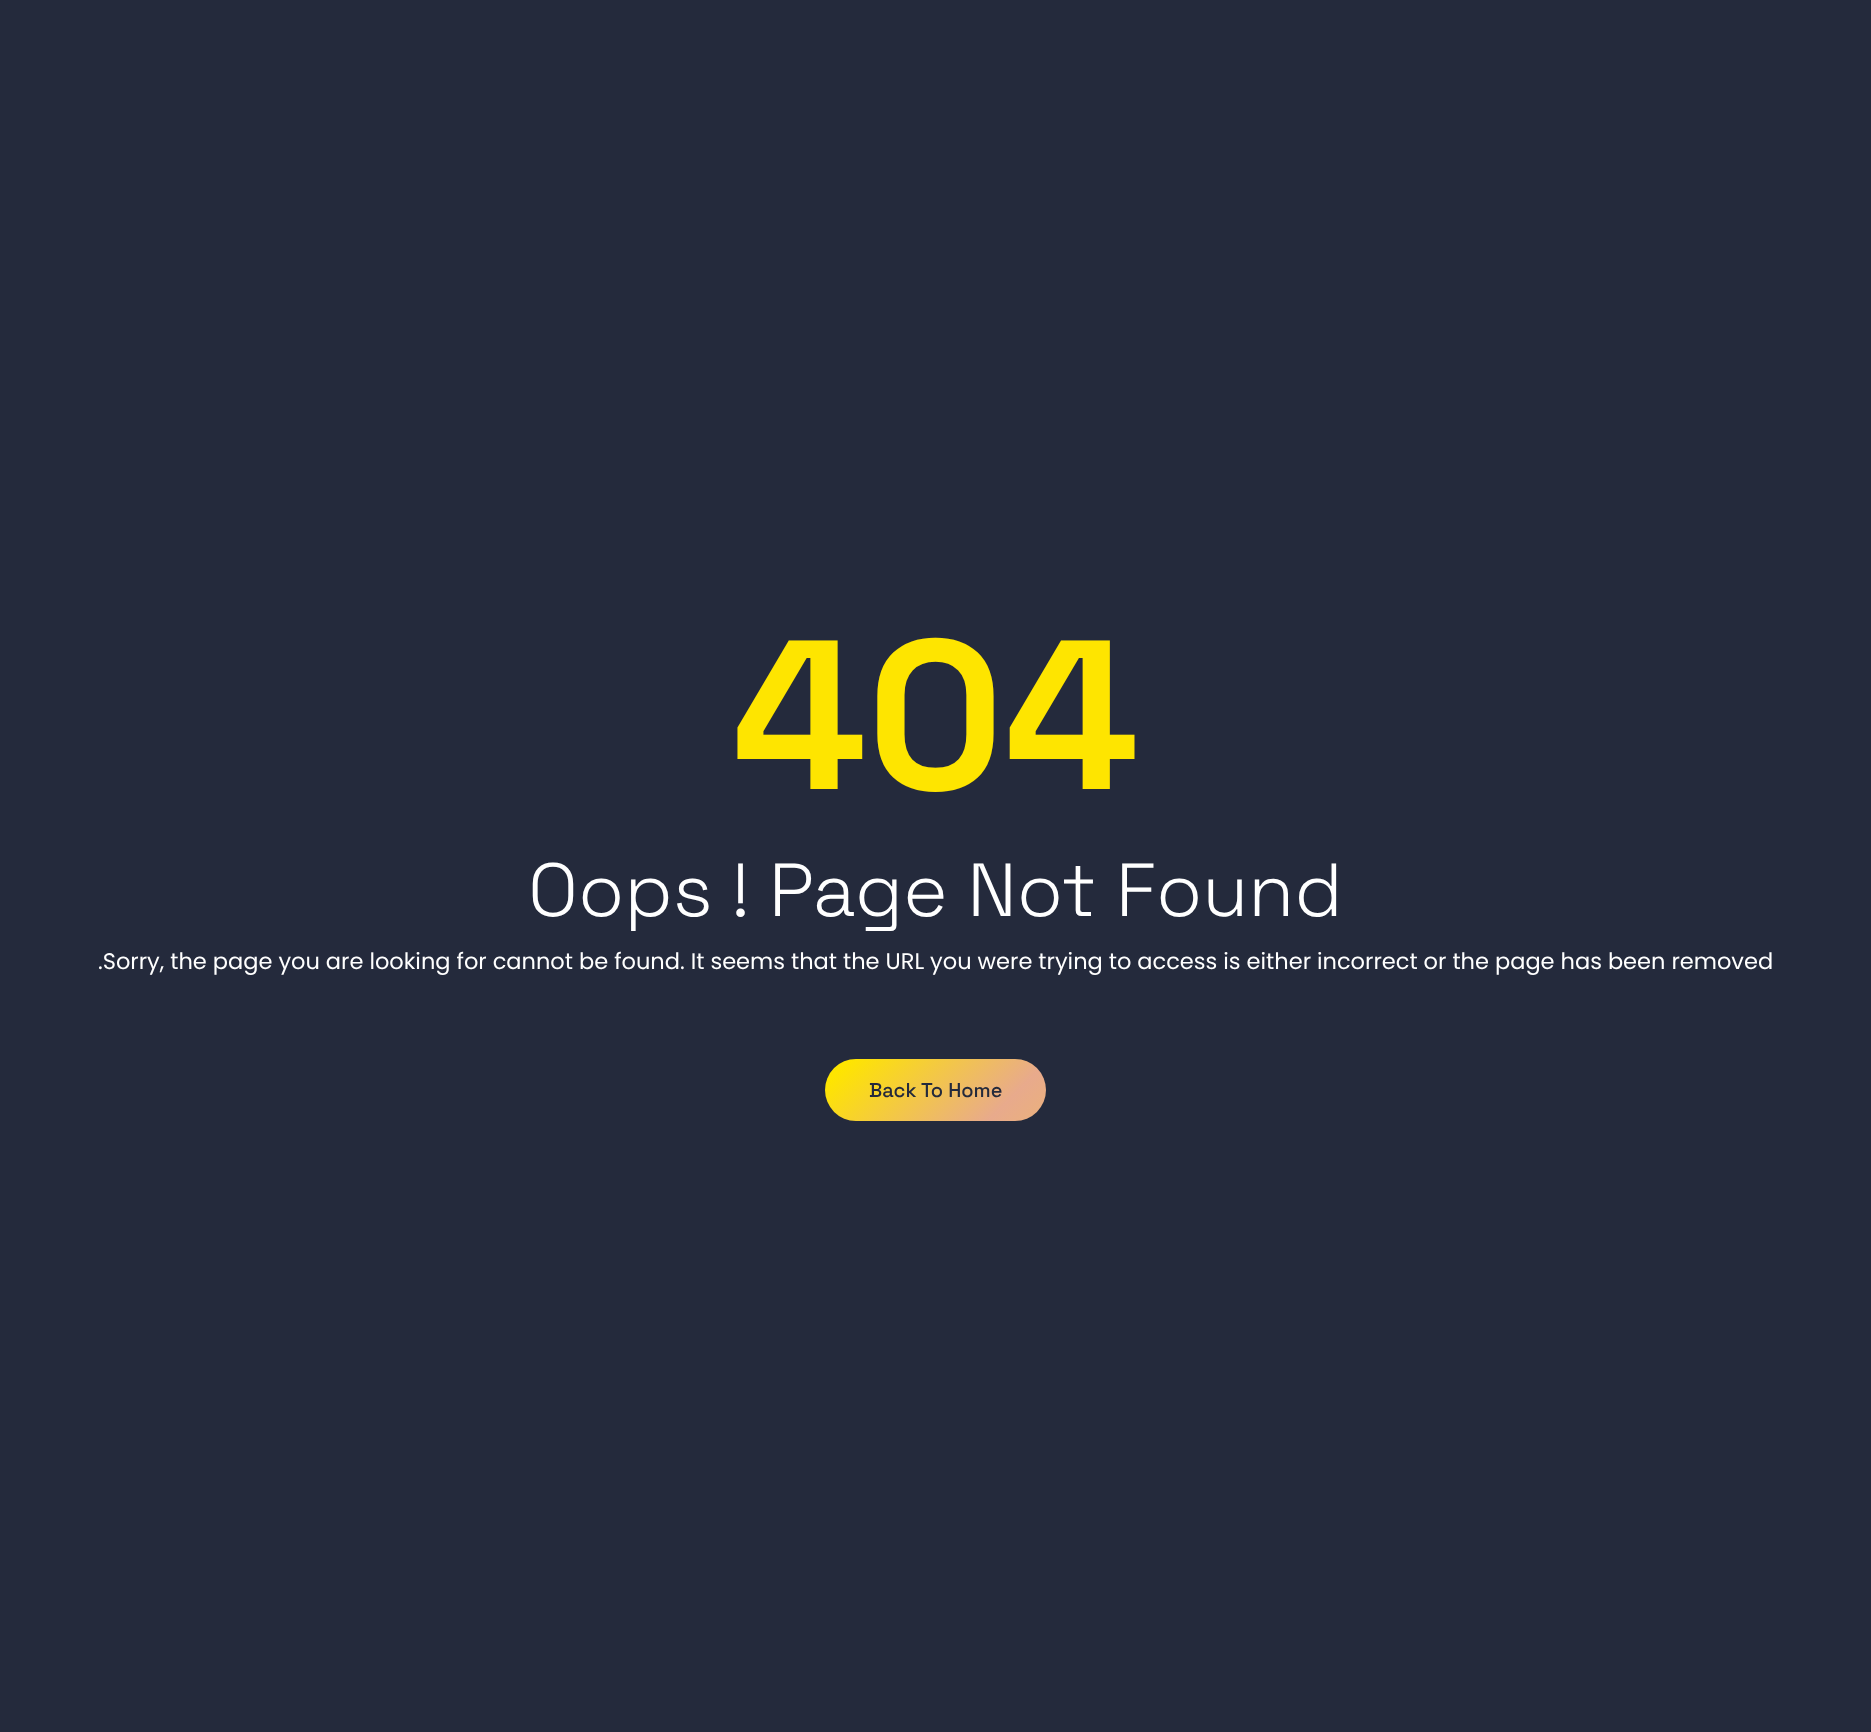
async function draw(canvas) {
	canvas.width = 1871;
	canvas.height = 1732;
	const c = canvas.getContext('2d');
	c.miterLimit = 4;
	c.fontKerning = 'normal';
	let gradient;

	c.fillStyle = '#242a3c';
	c.fillRect(0, 0, 1871, 1732);
	c.font = 'bold 212px Space Grotesk';
	c.fillStyle = '#fee500';
	c.fillText('404', 732, 789);
	c.font = '300 75px Space Grotesk';
	c.fillStyle = '#fff';
	c.fillText('Oops ! Page Not Found', 528, 916);
	c.font = '22.5px Poppins';
	c.fillText('.Sorry, the page you are looking for cannot be found. It seems that the URL you were trying to access is either incorrect or the page has been removed', 98, 969);
	gradient = c.createLinearGradient(1175, 1434, 675, 934);
	gradient.addColorStop(0, '#fee500');
	gradient.addColorStop(0.5, '#e8aa8c');
	gradient.addColorStop(0.7, '#fee500');
	c.fillStyle = gradient;
	c.beginPath();
	c.roundRect(825, 1059, 221, 62, 31);
	c.fill();
	c.font = '500 20px Space Grotesk';
	c.fillStyle = '#242a3c';
	c.fillText('Back To Home', 869, 1097);
}

draw(document.querySelector('canvas'));
